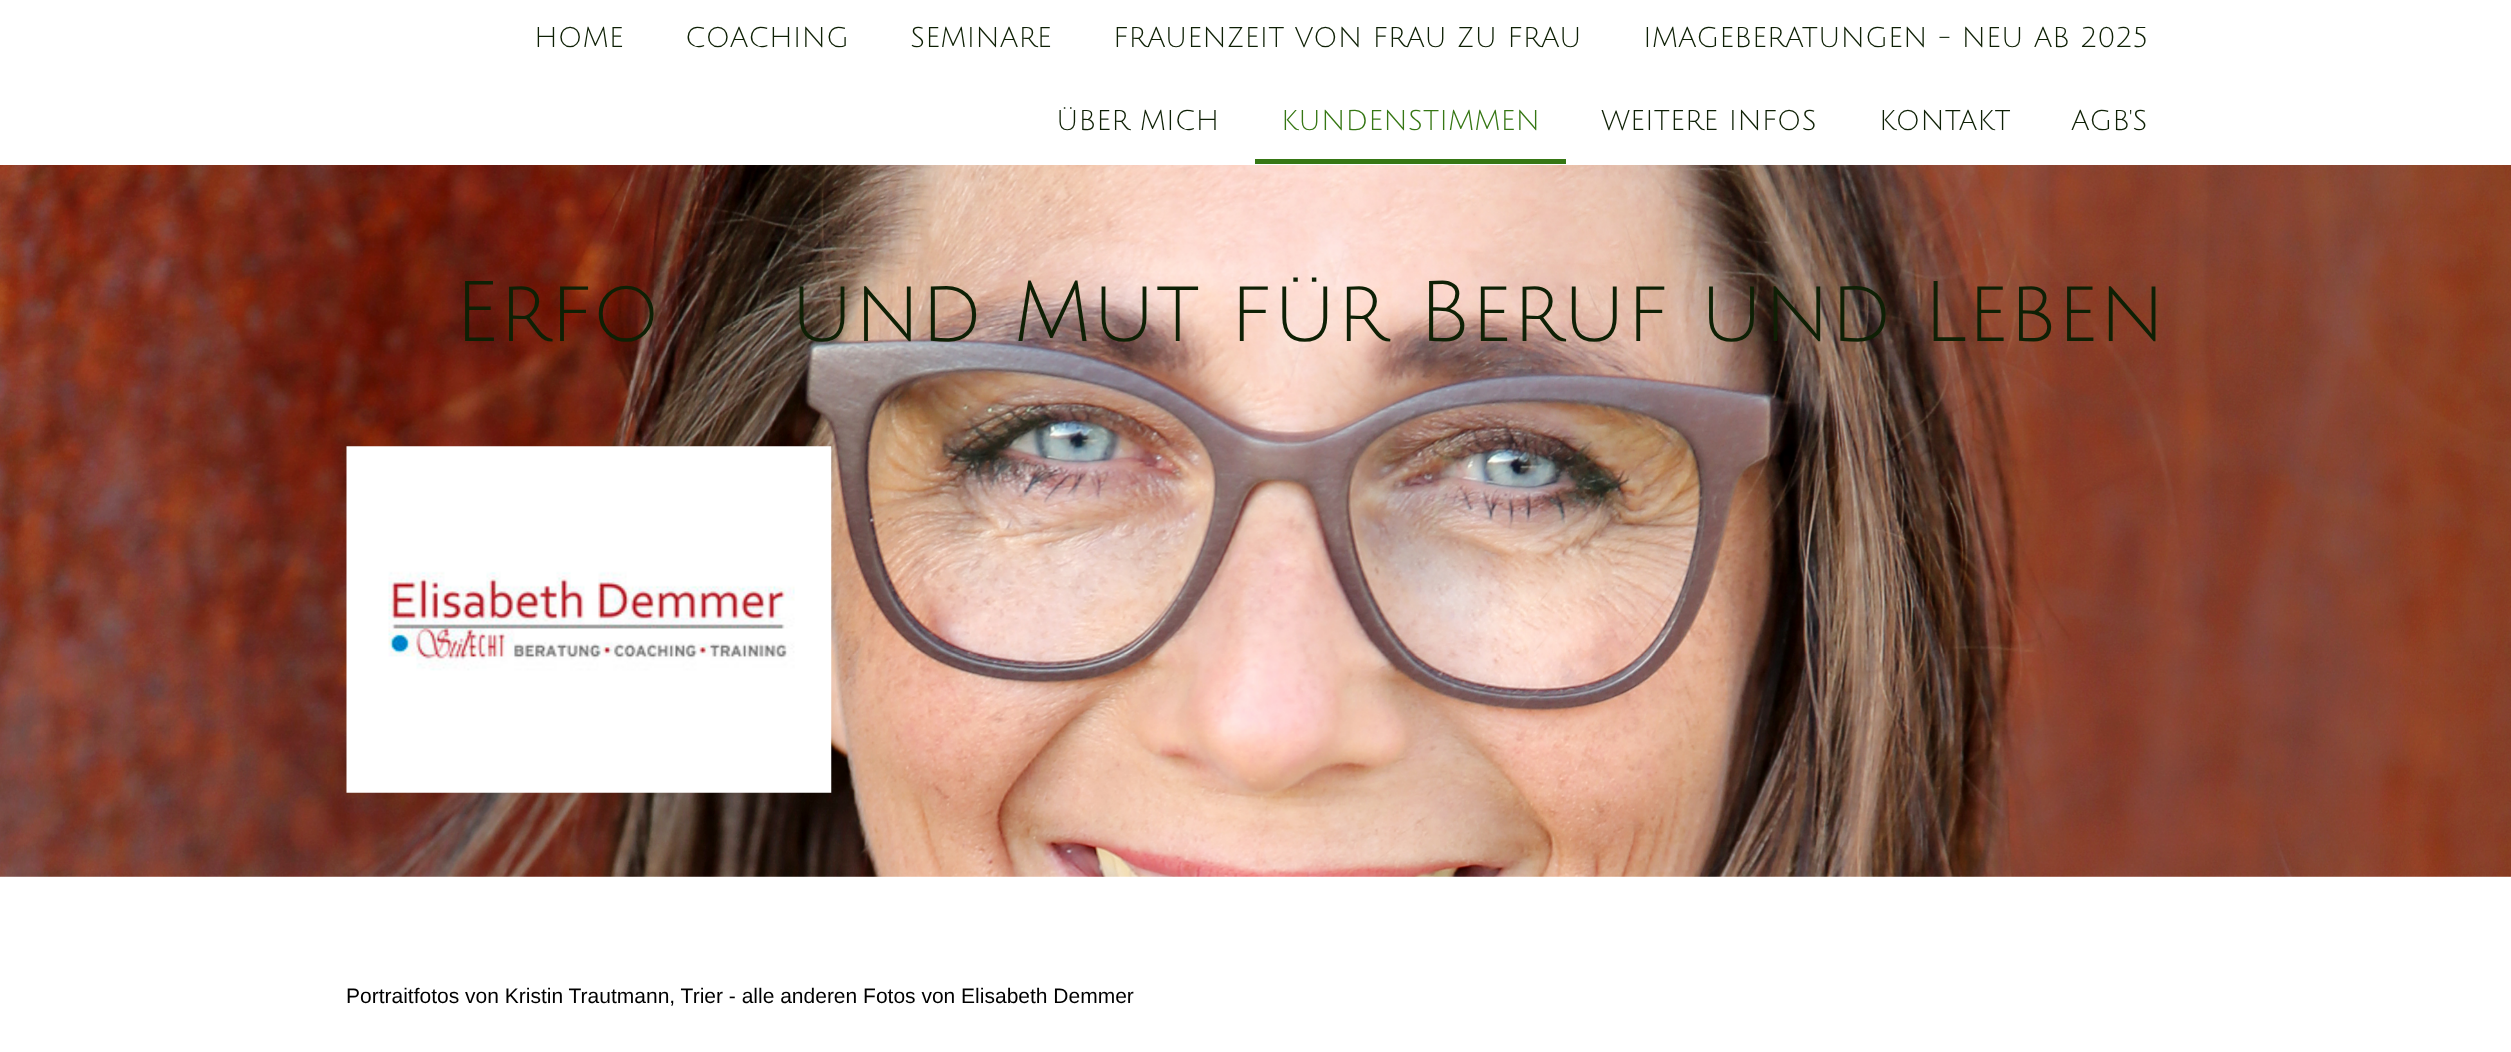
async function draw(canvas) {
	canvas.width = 2511;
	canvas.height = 1052;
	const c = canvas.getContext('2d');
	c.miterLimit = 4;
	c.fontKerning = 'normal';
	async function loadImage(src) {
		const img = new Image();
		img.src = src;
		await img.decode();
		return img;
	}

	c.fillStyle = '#fff';
	c.fillRect(0, 0, 2511, 1052);
	c.font = '28px Julius Sans One';
	c.fillStyle = '#0e2005';
	for (const [text, x, y] of [
		['HOME', 534, 47],
		['COACHING', 685, 47],
		['SEMINARE', 910, 47],
		['FRAUENZEIT VON FRAU ZU FRAU', 1113, 47],
		['IMAGEBERATUNGEN - NEU AB 2025', 1643, 47],
		['ÜBER MICH', 1056, 130],
	]) {
		c.fillText(text, x, y);
	}
	c.fillStyle = '#367714';
	c.fillRect(1255, 159, 311, 5);
	c.fillText('KUNDENSTIMMEN', 1281, 130);
	c.fillStyle = '#0e2005';
	for (const [text, x, y] of [
		['WEITERE INFOS', 1601, 130],
		['KONTAKT', 1879, 130],
		['AGB\'S', 2071, 130],
	]) {
		c.fillText(text, x, y);
	}
	c.drawImage(await loadImage('img1.png'), 0, 165, 2511, 712);
	c.font = '84px Julius Sans One';
	c.fillText('Erfo', 454, 341);
	c.fillText('und Mut für Beruf und Leben', 790, 341);
	c.drawImage(await loadImage('img2.png'), 346, 446, 486, 347);
	c.font = '21px Liberation Sans';
	c.fillStyle = '#000';
	c.fillText('Portraitfotos von Kristin Trautmann, Trier - alle anderen Fotos von Elisabeth Demmer', 346, 1003);
}

draw(document.querySelector('canvas'));
